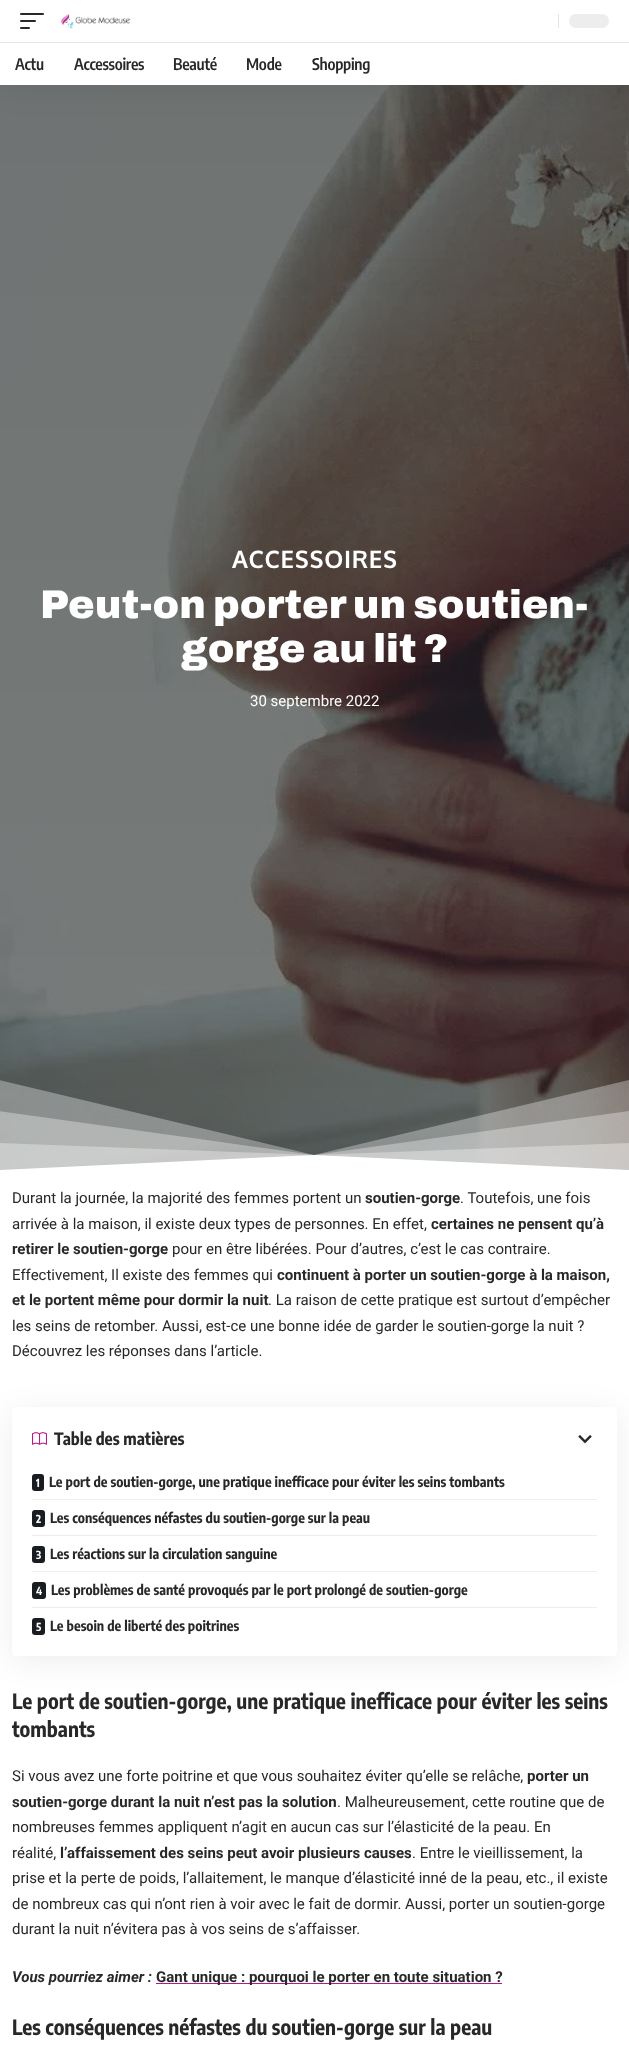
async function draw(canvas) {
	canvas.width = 629;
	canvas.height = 2049;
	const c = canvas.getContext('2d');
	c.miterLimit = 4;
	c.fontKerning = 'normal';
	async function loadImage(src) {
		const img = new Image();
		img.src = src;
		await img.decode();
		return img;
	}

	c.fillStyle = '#fff';
	c.fillRect(0, 0, 629, 2049);
	c.drawImage(await loadImage('img2.png'), 0, 85, 629, 1085);
	c.fillStyle = '#00000012';
	c.filter = 'blur(15px)';
	c.beginPath();
	c.rect(0, 4, 629, 85);
	c.fill();
	c.filter = 'none';
	c.fillStyle = '#fff';
	c.fillRect(0, 0, 629, 85);
	c.fillStyle = '#282828';
	c.beginPath();
	c.roundRect(20, 13, 24, 2, 1);
	c.fill();
	c.beginPath();
	c.roundRect(20, 20, 16, 2, 1);
	c.fill();
	c.beginPath();
	c.roundRect(20, 27, 10, 2, 1);
	c.fill();
	c.drawImage(await loadImage('img1.png'), 60, 14, 71, 15);
	c.fillStyle = '#e4e4e4';
	c.fillRect(558, 14, 1, 14);
	c.fillStyle = '#ededed';
	c.beginPath();
	c.roundRect(569, 14, 40, 14, 7);
	c.fill();
	c.fillStyle = '#e4e4e4';
	c.fillRect(0, 42, 629, 1);
	c.letterSpacing = '-0.25px';
	c.font = '600 16px Encode Sans Condensed';
	c.fillStyle = '#282828';
	for (const [text, x, y] of [
		['Actu', 15, 70],
		['Accessoires', 74, 70],
		['Beauté', 173, 70],
		['Mode', 246, 70],
		['Shopping', 312, 70],
	]) {
		c.fillText(text, x, y);
	}
	c.letterSpacing = '0.75px';
	c.font = 'bold 24px Oxygen';
	c.fillStyle = '#fff';
	c.fillText('ACCESSOIRES', 232, 568);
	c.letterSpacing = '0px';
	c.font = '900 40px Archivo';
	c.fillText('Peut-on porter un soutien-', 40, 618);
	c.fillText('gorge au lit ?', 181, 662);
	c.font = '15px Roboto';
	c.fillText('30 septembre 2022', 250, 706);
	c.save();
	c.beginPath();
	c.rect(0, 1075, 629, 100);
	c.clip();
	c.fillStyle = '#ffffff54';
	c.beginPath();
	c.moveTo(629, 1176);
	c.lineTo(629, 1080);
	c.lineTo(314, 1155);
	c.lineTo(-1, 1080);
	c.lineTo(-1, 1176);
	c.closePath();
	c.fill();
	c.beginPath();
	c.moveTo(629, 1176);
	c.lineTo(629, 1111);
	c.lineTo(314, 1155);
	c.lineTo(-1, 1111);
	c.lineTo(-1, 1176);
	c.closePath();
	c.fill();
	c.beginPath();
	c.moveTo(629, 1176);
	c.lineTo(629, 1143);
	c.lineTo(314, 1155);
	c.lineTo(-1, 1143);
	c.lineTo(-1, 1176);
	c.closePath();
	c.fill();
	c.fillStyle = '#fff';
	c.beginPath();
	c.moveTo(629, 1176);
	c.lineTo(629, 1170);
	c.lineTo(314, 1155);
	c.lineTo(-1, 1170);
	c.lineTo(-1, 1176);
	c.closePath();
	c.fill();
	c.restore();
	c.fillStyle = '#282828';
	c.fillText('Durant la journée, la majorité des femmes portent un', 12, 1203);
	c.font = 'bold 15px Roboto';
	c.fillText('soutien-gorge', 365, 1203);
	c.font = '15px Roboto';
	c.fillText('. Toutefois, une fois', 460, 1203);
	c.fillText('arrivée à la maison, il existe deux types de personnes. En effet,', 12, 1229);
	c.font = 'bold 15px Roboto';
	c.fillText('certaines ne pensent qu’à', 431, 1229);
	c.fillText('retirer le soutien-gorge', 12, 1254);
	c.font = '15px Roboto';
	c.fillText('pour en être libérées. Pour d’autres, c’est le cas contraire.', 172, 1254);
	c.fillText('Effectivement, Il existe des femmes qui', 12, 1280);
	c.font = 'bold 15px Roboto';
	c.fillText('continuent à porter un soutien-gorge à la maison,', 277, 1280);
	c.fillText('et le portent même pour dormir la nuit', 12, 1305);
	c.font = '15px Roboto';
	for (const [text, x, y] of [
		['. La raison de cette pratique est surtout d’empêcher', 268, 1305],
		['les seins de retomber. Aussi, est-ce une bonne idée de garder le soutien-gorge la nuit ?', 12, 1331],
		['Découvrez les réponses dans l’article.', 12, 1356],
	]) {
		c.fillText(text, x, y);
	}
	c.save();
	c.beginPath();
	c.moveTo(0, 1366);
	c.lineTo(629, 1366);
	c.lineTo(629, 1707);
	c.lineTo(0, 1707);
	c.closePath();
	c.moveTo(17, 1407);
	c.lineTo(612, 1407);
	c.bezierCurveTo(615, 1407, 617, 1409, 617, 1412);
	c.lineTo(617, 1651);
	c.bezierCurveTo(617, 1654, 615, 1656, 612, 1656);
	c.lineTo(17, 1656);
	c.bezierCurveTo(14, 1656, 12, 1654, 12, 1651);
	c.lineTo(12, 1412);
	c.bezierCurveTo(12, 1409, 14, 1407, 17, 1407);
	c.closePath();
	c.clip('evenodd');
	c.fillStyle = '#00000012';
	c.filter = 'blur(15px)';
	c.beginPath();
	c.roundRect(12, 1412, 605, 249, 5);
	c.fill();
	c.filter = 'none';
	c.restore();
	c.drawImage(await loadImage('img3.png'), 32, 1432, 15, 13);
	c.font = 'bold 17px Encode Sans Condensed';
	c.fillText('Table des matières', 54, 1445);
	c.drawImage(await loadImage('img4.png'), 578, 1435, 14, 9);
	c.fillStyle = '#191c20';
	c.beginPath();
	c.roundRect(32, 1474, 12, 17, 3);
	c.fill();
	c.font = 'bold 11px Encode Sans Condensed';
	c.fillStyle = '#fff';
	c.fillText('1', 36, 1487);
	c.font = 'bold 14px Encode Sans Condensed';
	c.fillStyle = '#282828';
	c.fillText('Le port de soutien-gorge, une pratique inefficace pour éviter les seins tombants', 49, 1487);
	c.fillStyle = '#ededed';
	c.fillRect(32, 1499, 565, 1);
	c.fillStyle = '#191c20';
	c.beginPath();
	c.roundRect(32, 1510, 13, 17, 3);
	c.fill();
	c.font = 'bold 11px Encode Sans Condensed';
	c.fillStyle = '#fff';
	c.fillText('2', 36, 1523);
	c.font = 'bold 14px Encode Sans Condensed';
	c.fillStyle = '#282828';
	c.fillText('Les conséquences néfastes du soutien-gorge sur la peau', 50, 1523);
	c.fillStyle = '#ededed';
	c.fillRect(32, 1535, 565, 1);
	c.fillStyle = '#191c20';
	c.beginPath();
	c.roundRect(32, 1546, 13, 17, 3);
	c.fill();
	c.font = 'bold 11px Encode Sans Condensed';
	c.fillStyle = '#fff';
	c.fillText('3', 36, 1559);
	c.font = 'bold 14px Encode Sans Condensed';
	c.fillStyle = '#282828';
	c.fillText('Les réactions sur la circulation sanguine', 50, 1559);
	c.fillStyle = '#ededed';
	c.fillRect(32, 1571, 565, 1);
	c.fillStyle = '#191c20';
	c.beginPath();
	c.roundRect(32, 1582, 14, 17, 3);
	c.fill();
	c.font = 'bold 11px Encode Sans Condensed';
	c.fillStyle = '#fff';
	c.fillText('4', 36, 1595);
	c.font = 'bold 14px Encode Sans Condensed';
	c.fillStyle = '#282828';
	c.fillText('Les problèmes de santé provoqués par le port prolongé de soutien-gorge', 51, 1595);
	c.fillStyle = '#ededed';
	c.fillRect(32, 1607, 565, 1);
	c.fillStyle = '#191c20';
	c.beginPath();
	c.roundRect(32, 1618, 13, 17, 3);
	c.fill();
	c.font = 'bold 11px Encode Sans Condensed';
	c.fillStyle = '#fff';
	c.fillText('5', 36, 1631);
	c.font = 'bold 14px Encode Sans Condensed';
	c.fillStyle = '#282828';
	c.fillText('Le besoin de liberté des poitrines', 50, 1631);
	c.font = 'bold 21px Encode Sans Condensed';
	c.fillText('Le port de soutien-gorge, une pratique inefficace pour éviter les seins', 12, 1709);
	c.fillText('tombants', 12, 1737);
	c.font = '15px Roboto';
	c.fillText('Si vous avez une forte poitrine et que vous souhaitez éviter qu’elle se relâche,', 12, 1781);
	c.font = 'bold 15px Roboto';
	c.fillText('porter un', 527, 1781);
	c.fillText('soutien-gorge durant la nuit n’est pas la solution', 12, 1807);
	c.font = '15px Roboto';
	for (const [text, x, y] of [
		['. Malheureusement, cette routine que de', 337, 1807],
		['nombreuses femmes appliquent n’agit en aucun cas sur l’élasticité de la peau. En', 12, 1832],
		['réalité,', 12, 1858],
	]) {
		c.fillText(text, x, y);
	}
	c.font = 'bold 15px Roboto';
	c.fillText('l’affaissement des seins peut avoir plusieurs causes', 60, 1858);
	c.font = '15px Roboto';
	for (const [text, x, y] of [
		['. Entre le vieillissement, la', 412, 1858],
		['prise et la perte de poids, l’allaitement, le manque d’élasticité inné de la peau, etc., il existe', 12, 1883],
		['de nombreux cas qui n’ont rien à voir avec le fait de dormir. Aussi, porter un soutien-gorge', 12, 1909],
		['durant la nuit n’évitera pas à vos seins de s’affaisser.', 12, 1934],
	]) {
		c.fillText(text, x, y);
	}
	c.font = 'italic bold 15px Roboto';
	c.fillText('Vous pourriez aimer :', 12, 1982);
	c.fillStyle = '#b4188a';
	c.fillRect(156, 1983, 346, 1);
	c.font = 'bold 15px Roboto';
	c.fillStyle = '#282828';
	c.fillText('Gant unique : pourquoi le porter en toute situation ?', 156, 1982);
	c.font = 'bold 21px Encode Sans Condensed';
	c.fillText('Les conséquences néfastes du soutien-gorge sur la peau', 12, 2035);
}

draw(document.querySelector('canvas'));
